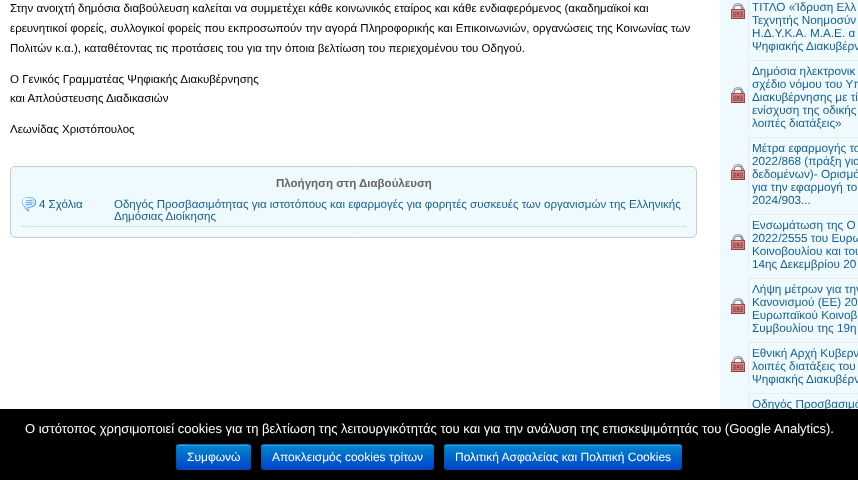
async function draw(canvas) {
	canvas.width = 858;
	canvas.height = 480;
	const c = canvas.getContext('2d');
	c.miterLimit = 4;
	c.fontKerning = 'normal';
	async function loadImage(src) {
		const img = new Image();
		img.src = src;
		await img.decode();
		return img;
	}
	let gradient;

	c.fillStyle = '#fff';
	c.fillRect(0, 0, 858, 480);
	c.font = '11.52px Liberation Sans';
	c.fillStyle = '#000';
	for (const [text, x, y] of [
		['Στην ανοιχτή δημόσια διαβούλευση καλείται να συμμετέχει κάθε κοινωνικός εταίρος και κάθε ενδιαφερόμενος (ακαδημαϊκοί και', 10, 12],
		['ερευνητικοί φορείς, συλλογικοί φορείς που εκπροσωπούν την αγορά Πληροφορικής και Επικοινωνιών, οργανώσεις της Κοινωνίας των', 10, 32],
		['Πολιτών κ.α.), καταθέτοντας τις προτάσεις του για την όποια βελτίωση του περιεχομένου του Οδηγού.', 10, 52],
		['Ο Γενικός Γραμματέας Ψηφιακής Διακυβέρνησης', 10, 83],
		['και Απλούστευσης Διαδικασιών', 10, 102],
		['Λεωνίδας Χριστόπουλος', 10, 133],
	]) {
		c.fillText(text, x, y);
	}
	c.fillStyle = '#effaff';
	c.beginPath();
	c.roundRect(10.5, 166.5, 686, 71, 4.5);
	c.fill();
	c.strokeStyle = '#cacaca';
	c.stroke();
	c.font = 'bold 11.52px Liberation Sans';
	c.fillStyle = '#666';
	c.fillText('Πλοήγηση στη Διαβούλευση', 276, 187);
	c.beginPath();
	c.moveTo(21, 226.5);
	c.lineTo(686, 226.5);
	c.setLineDash([1, 1]);
	c.stroke();
	c.drawImage(await loadImage('img1.png'), 22, 197, 14, 14);
	c.font = '11.52px Liberation Sans';
	c.fillStyle = '#1a6091';
	for (const [text, x, y] of [
		['4 Σχόλια', 39, 208],
		['Οδηγός Προσβασιμότητας για ιστοτόπους και εφαρμογές για φορητές συσκευές των οργανισμών της Ελληνικής', 114, 208],
		['Δημόσιας Διοίκησης', 114, 220],
	]) {
		c.fillText(text, x, y);
	}
	c.fillStyle = '#effaff';
	c.fillRect(720, 0, 138, 409);
	c.drawImage(await loadImage('img2.png'), 731, 3, 14, 16);
	c.fillStyle = '#eaeaea';
	c.fillRect(748, 0, 1, 52);
	c.font = '11.75px Liberation Sans';
	c.fillStyle = '#1a6091';
	for (const [text, x, y] of [
		['ΤΙΤΛΟ «Ίδρυση Ελλ', 752, 11],
		['Τεχνητής Νοημοσύν', 752, 24],
		['Η.Δ.Υ.Κ.Α. Μ.Α.Ε. α', 752, 37],
		['Ψηφιακής Διακυβέρν', 752, 50],
	]) {
		c.fillText(text, x, y);
	}
	c.drawImage(await loadImage('img2.png'), 731, 87, 14, 16);
	c.fillStyle = '#eaeaea';
	c.fillRect(748, 60, 110, 1);
	c.fillRect(748, 60, 1, 69);
	c.fillStyle = '#1a6091';
	for (const [text, x, y] of [
		['Δημόσια ηλεκτρονικ', 752, 75],
		['σχέδιο νόμου του Υπ', 752, 88],
		['Διακυβέρνησης με τί', 752, 101],
		['ενίσχυση της οδικής', 752, 114],
		['λοιπές διατάξεις»', 752, 127],
	]) {
		c.fillText(text, x, y);
	}
	c.drawImage(await loadImage('img2.png'), 731, 164, 14, 16);
	c.fillStyle = '#eaeaea';
	c.fillRect(748, 137, 110, 1);
	c.fillRect(748, 137, 1, 69);
	c.fillStyle = '#1a6091';
	for (const [text, x, y] of [
		['Μέτρα εφαρμογής το', 752, 152],
		['2022/868 (πράξη για', 752, 165],
		['δεδομένων)- Ορισμό', 752, 178],
		['για την εφαρμογή το', 752, 191],
		['2024/903...', 752, 204],
	]) {
		c.fillText(text, x, y);
	}
	c.drawImage(await loadImage('img2.png'), 731, 234, 14, 16);
	c.fillStyle = '#eaeaea';
	c.fillRect(748, 214, 110, 1);
	c.fillRect(748, 214, 1, 56);
	c.fillStyle = '#1a6091';
	for (const [text, x, y] of [
		['Ενσωμάτωση της Ο', 752, 229],
		['2022/2555 του Ευρω', 752, 242],
		['Κοινοβουλίου και του', 752, 255],
		['14ης Δεκεμβρίου 20', 752, 268],
	]) {
		c.fillText(text, x, y);
	}
	c.drawImage(await loadImage('img2.png'), 731, 298, 14, 16);
	c.fillStyle = '#eaeaea';
	c.fillRect(748, 278, 110, 1);
	c.fillRect(748, 278, 1, 56);
	c.fillStyle = '#1a6091';
	for (const [text, x, y] of [
		['Λήψη μέτρων για την', 752, 293],
		['Κανονισμού (ΕΕ) 20', 752, 306],
		['Ευρωπαϊκού Κοινοβ', 752, 319],
		['Συμβουλίου της 19η', 752, 332],
	]) {
		c.fillText(text, x, y);
	}
	c.drawImage(await loadImage('img2.png'), 731, 356, 14, 16);
	c.fillStyle = '#eaeaea';
	c.fillRect(748, 342, 110, 1);
	c.fillRect(748, 342, 1, 43);
	c.fillStyle = '#1a6091';
	for (const [text, x, y] of [
		['Εθνική Αρχή Κυβερν', 752, 357],
		['λοιπές διατάξεις του', 752, 370],
		['Ψηφιακής Διακυβέρν', 752, 383],
	]) {
		c.fillText(text, x, y);
	}
	c.fillStyle = '#eaeaea';
	c.fillRect(748, 393, 110, 1);
	c.fillRect(748, 393, 1, 16);
	c.fillStyle = '#1a6091';
	c.fillText('Οδηγός Προσβασιμό', 752, 408);
	c.fillStyle = '#000';
	c.fillRect(0, 409, 858, 71);
	c.font = '13px Liberation Sans';
	c.fillStyle = '#fff';
	c.fillText('Ο ιστότοπος χρησιμοποιεί cookies για τη βελτίωση της λειτουργικότητάς του και για την ανάλυση της επισκεψιμότητάς του (Google Analytics).', 25, 433);
	c.fillStyle = '#006dcc';
	c.beginPath();
	c.roundRect(176, 444, 75, 26, 3);
	c.fill();
	c.save();
	c.beginPath();
	c.roundRect(176, 444, 75, 26, 3);
	c.clip();
	gradient = c.createLinearGradient(214, 445, 214, 469);
	gradient.addColorStop(0, '#08c');
	gradient.addColorStop(1, '#04c');
	c.fillStyle = gradient;
	c.fillRect(176, 445, 75, 24);
	c.restore();
	c.fillStyle = '#ffffff33';
	c.beginPath();
	c.moveTo(179, 446);
	c.lineTo(249, 446);
	c.lineTo(250, 449);
	c.bezierCurveTo(250, 442, 245, 445, 236, 445);
	c.lineTo(190, 445);
	c.bezierCurveTo(185, 445, 177, 442, 177, 449);
	c.bezierCurveTo(177, 447, 178, 446, 179, 446);
	c.closePath();
	c.moveTo(250, 465);
	c.lineTo(250, 468);
	c.closePath();
	c.fill('evenodd');
	c.beginPath();
	c.moveTo(250, 469);
	c.lineTo(248, 469.5);
	c.lineTo(236.5, 469.5);
	c.bezierCurveTo(230, 469.5, 179.5, 470.5, 177.5, 469);
	c.lineTo(177, 469);
	c.strokeStyle = '#00000040';
	c.setLineDash([]);
	c.stroke();
	c.beginPath();
	c.moveTo(177, 469);
	c.bezierCurveTo(175.5, 467, 176.5, 459.5, 176.5, 457);
	c.bezierCurveTo(176.5, 442, 174, 444.5, 190.5, 444.5);
	c.lineTo(236.5, 444.5);
	c.bezierCurveTo(254, 444.5, 250.5, 442, 250.5, 460.5);
	c.bezierCurveTo(250.5, 462.5, 251.5, 467, 250, 469);
	c.strokeStyle = '#0000001a';
	c.stroke();
	c.font = '12px Liberation Sans';
	c.fillStyle = '#fff';
	c.fillText('Συμφωνώ', 187, 461);
	c.fillStyle = '#006dcc';
	c.beginPath();
	c.roundRect(261, 444, 173, 26, 3);
	c.fill();
	c.save();
	c.beginPath();
	c.roundRect(261, 444, 173, 26, 3);
	c.clip();
	gradient = c.createLinearGradient(348, 445, 348, 469);
	gradient.addColorStop(0, '#08c');
	gradient.addColorStop(1, '#04c');
	c.fillStyle = gradient;
	c.fillRect(261, 445, 173, 24);
	c.restore();
	c.fillStyle = '#ffffff33';
	c.beginPath();
	c.moveTo(264, 446);
	c.lineTo(431, 446);
	c.bezierCurveTo(432, 446, 433, 447, 433, 448);
	c.bezierCurveTo(433, 447, 433, 445, 431, 445);
	c.lineTo(263, 445);
	c.bezierCurveTo(262, 446, 262, 447, 262, 448);
	c.bezierCurveTo(262, 447, 263, 446, 264, 446);
	c.closePath();
	c.fill();
	c.beginPath();
	c.moveTo(433, 469);
	c.lineTo(431, 469.5);
	c.lineTo(264, 469.5);
	c.lineTo(262, 469);
	c.strokeStyle = '#00000040';
	c.stroke();
	c.beginPath();
	c.moveTo(262, 469);
	c.bezierCurveTo(260.5, 467, 261.5, 459.5, 261.5, 457);
	c.lineTo(261.5, 450.5);
	c.bezierCurveTo(261.5, 448.5, 261, 444.5, 264, 444.5);
	c.lineTo(431, 444.5);
	c.bezierCurveTo(434, 444.5, 433.5, 448.5, 433.5, 450.5);
	c.lineTo(433.5, 457);
	c.bezierCurveTo(433.5, 459.5, 434.5, 467, 433, 469);
	c.strokeStyle = '#0000001a';
	c.stroke();
	c.fillStyle = '#fff';
	c.fillText('Αποκλεισμός cookies τρίτων', 272, 461);
	c.fillStyle = '#006dcc';
	c.beginPath();
	c.roundRect(444, 444, 238, 26, 3);
	c.fill();
	c.save();
	c.beginPath();
	c.roundRect(444, 444, 238, 26, 3);
	c.clip();
	gradient = c.createLinearGradient(563, 445, 563, 469);
	gradient.addColorStop(0, '#08c');
	gradient.addColorStop(1, '#04c');
	c.fillStyle = gradient;
	c.fillRect(444, 445, 238, 24);
	c.restore();
	c.fillStyle = '#ffffff33';
	c.beginPath();
	c.moveTo(447, 446);
	c.lineTo(679, 446);
	c.bezierCurveTo(680, 446, 681, 447, 681, 448);
	c.lineTo(681, 446);
	c.lineTo(679, 445);
	c.lineTo(447, 445);
	c.bezierCurveTo(445, 445, 445, 447, 445, 448);
	c.bezierCurveTo(445, 447, 446, 446, 447, 446);
	c.closePath();
	c.fill();
	c.beginPath();
	c.moveTo(681, 469);
	c.lineTo(679, 469.5);
	c.lineTo(447, 469.5);
	c.lineTo(445, 469);
	c.strokeStyle = '#00000040';
	c.stroke();
	c.beginPath();
	c.moveTo(445, 469);
	c.bezierCurveTo(443.5, 467, 444.5, 453.5, 444.5, 450.5);
	c.bezierCurveTo(444.5, 448.5, 444, 444.5, 447, 444.5);
	c.lineTo(679, 444.5);
	c.bezierCurveTo(682, 444.5, 681.5, 448.5, 681.5, 450.5);
	c.bezierCurveTo(681.5, 453.5, 682.5, 467, 681, 469);
	c.strokeStyle = '#0000001a';
	c.stroke();
	c.fillStyle = '#fff';
	c.fillText('Πολιτική Ασφαλείας και Πολιτική Cookies', 455, 461);
}

draw(document.querySelector('canvas'));
